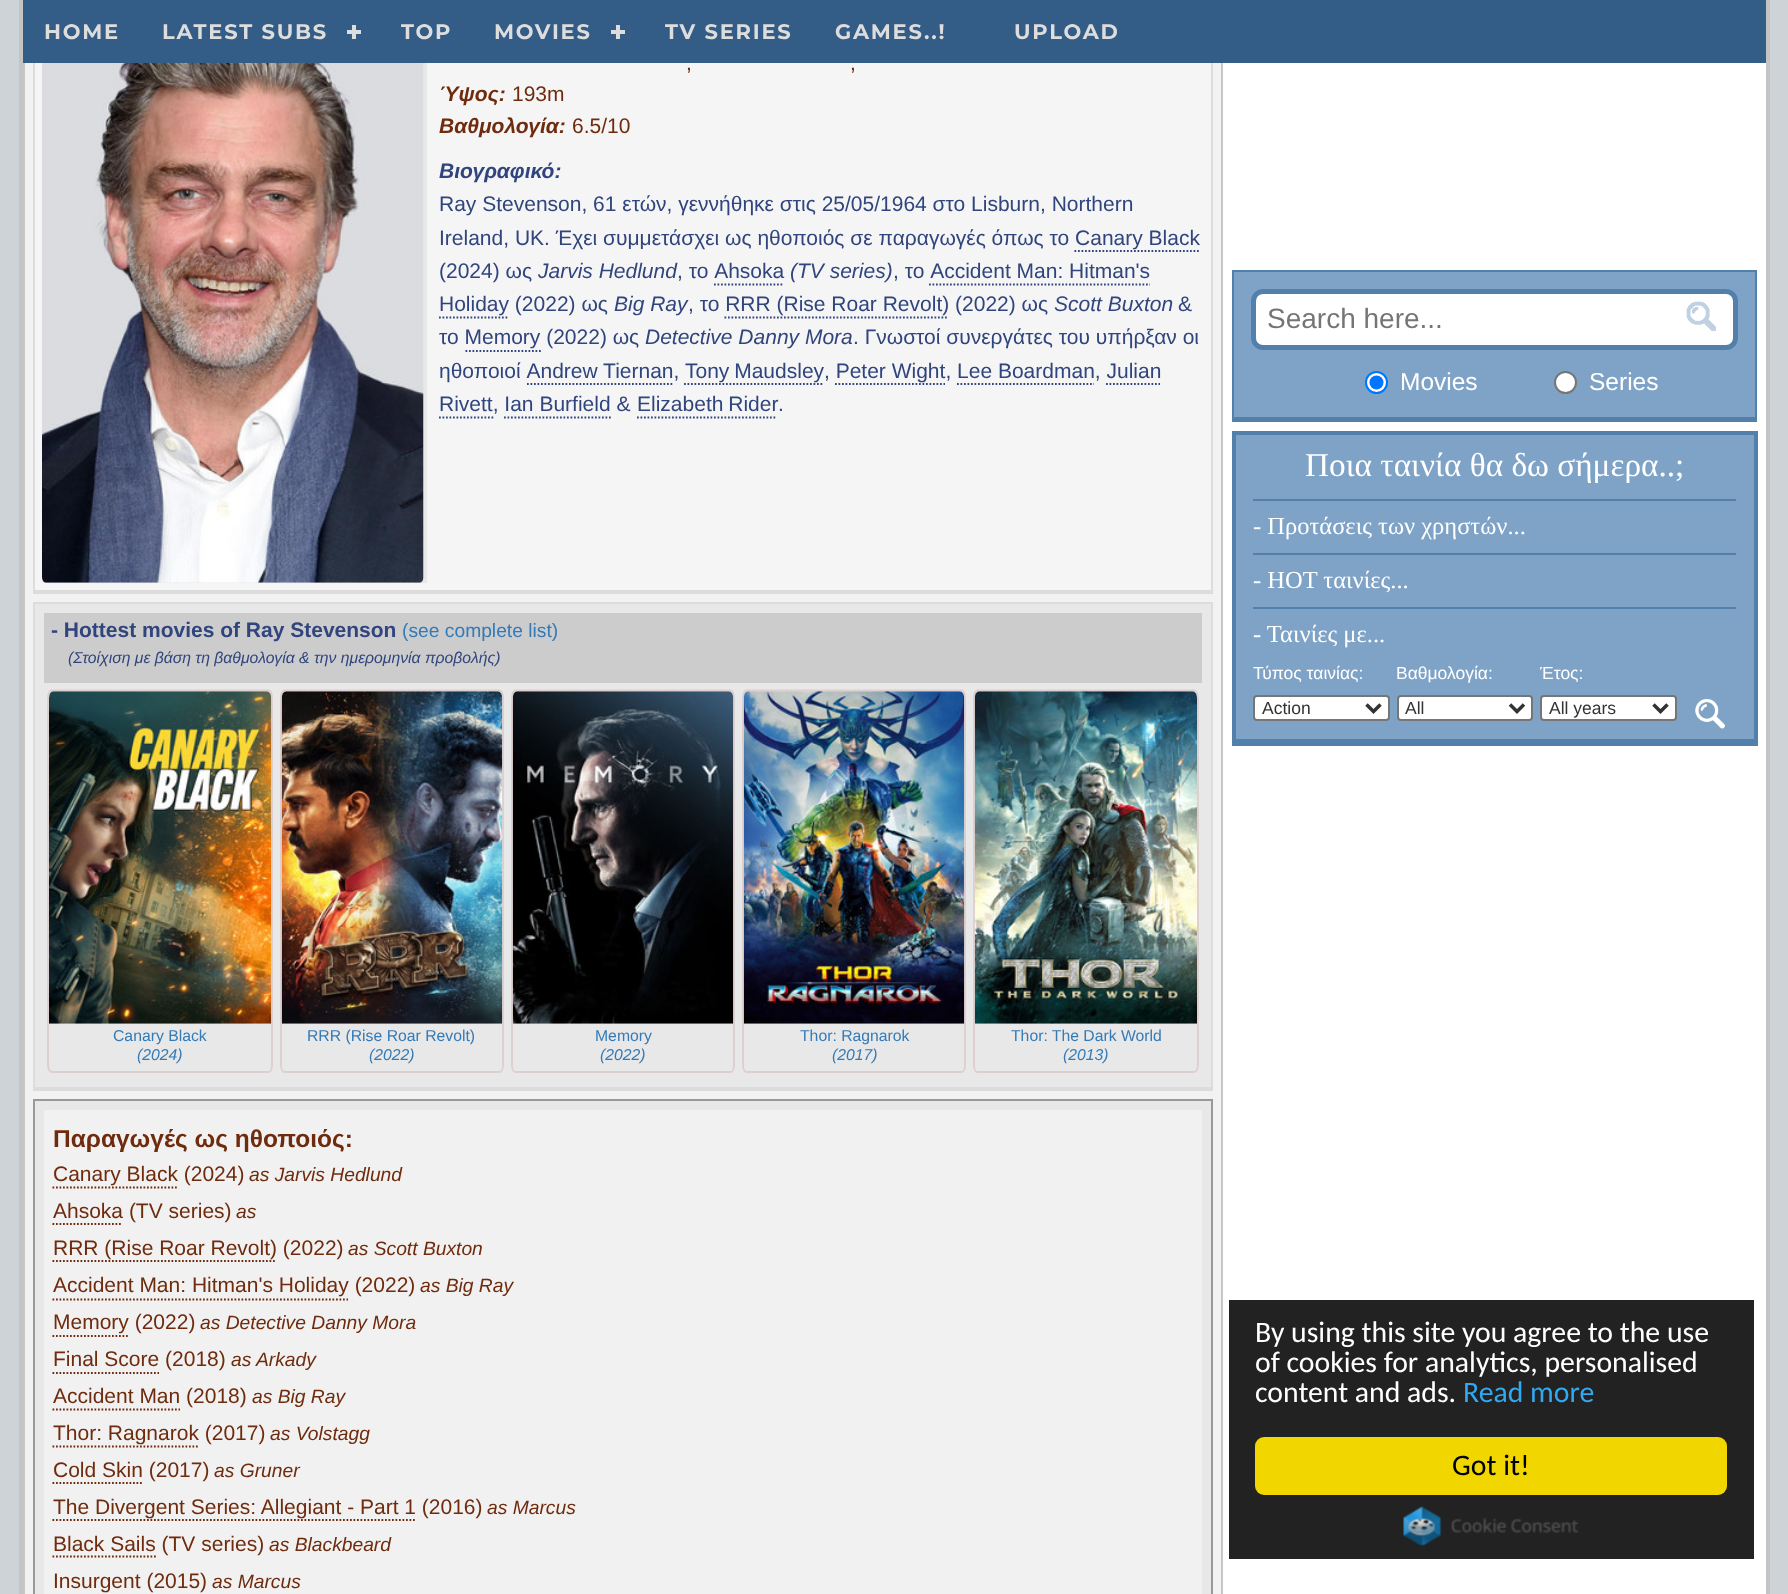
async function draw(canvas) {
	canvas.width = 1788;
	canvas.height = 1594;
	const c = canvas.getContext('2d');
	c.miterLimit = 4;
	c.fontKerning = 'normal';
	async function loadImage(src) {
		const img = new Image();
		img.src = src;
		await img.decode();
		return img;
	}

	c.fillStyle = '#ced3d7';
	c.fillRect(0, 0, 1788, 1594);
	for (const [x, y, w, h, color] of [
		[1223, 63, 543, 1531, '#fff'],
		[1766, 0, 4, 1594, '#c4c4c4'],
		[19, 0, 4, 1594, '#c4c4c4'],
		[25, 63, 1196, 1531, '#f2f2f2'],
	]) {
		c.fillStyle = color;
		c.fillRect(x, y, w, h);
	}
	c.strokeStyle = '#c6c6c6';
	c.lineWidth = 2;
	c.strokeRect(24, -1, 1198, 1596);
	c.fillStyle = '#335c86';
	c.fillRect(23, 0, 1743, 63);
	c.letterSpacing = '1.75px';
	c.font = 'bold 21px Montserrat';
	c.fillStyle = '#ddd';
	c.fillText('HOME', 44, 39);
	c.fillText('LATEST SUBS', 162, 39);
	c.fillRect(352, 25, 4, 14);
	c.fillRect(347, 30, 14, 4);
	c.fillText('TOP', 401, 39);
	c.fillText('MOVIES', 494, 39);
	c.fillRect(616, 25, 4, 14);
	c.fillRect(611, 30, 14, 4);
	for (const [text, x, y] of [
		['TV SERIES', 665, 39],
		['GAMES..!', 835, 39],
		['UPLOAD', 1014, 39],
	]) {
		c.fillText(text, x, y);
	}
	for (const [x, y, w, h, color] of [
		[35, 63, 1176, 527, '#f5f5f5'],
		[1211, 63, 2, 530, '#dcdcdc'],
		[33, 590, 1180, 4, '#dcdcdc'],
		[33, 63, 2, 530, '#dcdcdc'],
		[42, 63, 385, 520, '#e8e8e8'],
	]) {
		c.fillStyle = color;
		c.fillRect(x, y, w, h);
	}
	c.drawImage(await loadImage('img1.png'), 42, 63, 382, 520);
	c.letterSpacing = '0px';
	c.font = '21px Liberation Sans';
	c.fillStyle = '#6f2b0d';
	c.fillText(',', 686, 70);
	c.fillText(',', 850, 70);
	c.font = 'italic bold 21px Liberation Sans';
	c.fillText('Ύψος:', 439, 101);
	c.font = '21px Liberation Sans';
	c.fillText('193m', 512, 101);
	c.font = 'italic bold 21px Liberation Sans';
	c.fillText('Βαθμολογία:', 439, 133);
	c.font = '21px Liberation Sans';
	c.fillText('6.5/10', 572, 133);
	c.font = 'italic bold 21px Liberation Sans';
	c.fillStyle = '#30457d';
	c.fillText('Βιογραφικό:', 439, 178);
	c.font = '21px Liberation Sans';
	c.fillText('Ray Stevenson, 61 ετών, γεννήθηκε στις 25/05/1964 στο Lisburn, Northern', 439, 211);
	c.fillText('Ireland, UK. Έχει συμμετάσχει ως ηθοποιός σε παραγωγές όπως το Canary Black', 439, 245);
	c.beginPath();
	c.moveTo(1074.5, 251);
	c.lineTo(1200.5, 251);
	c.strokeStyle = '#30457d';
	c.lineWidth = 1.8;
	c.setLineDash([1.75, 1.75]);
	c.stroke();
	c.fillText('(2024) ως', 439, 278);
	c.font = 'italic 21px Liberation Sans';
	c.fillText('Jarvis Hedlund', 538, 278);
	c.font = '21px Liberation Sans';
	c.fillText(', το Ahsoka', 677, 278);
	c.font = 'italic 21px Liberation Sans';
	c.fillText('(TV series)', 790, 278);
	c.font = '21px Liberation Sans';
	c.fillText(', το Accident Man: Hitman\'s', 893, 278);
	c.beginPath();
	c.moveTo(714, 284.5);
	c.lineTo(784, 284.5);
	c.stroke();
	c.fillText('Holiday (2022) ως', 439, 311);
	c.beginPath();
	c.moveTo(929, 284.5);
	c.lineTo(1150, 284.5);
	c.stroke();
	c.beginPath();
	c.moveTo(439, 317.5);
	c.lineTo(509, 317.5);
	c.stroke();
	c.font = 'italic 21px Liberation Sans';
	c.fillText('Big Ray', 614, 311);
	c.font = '21px Liberation Sans';
	c.fillText(', το RRR (Rise Roar Revolt) (2022) ως', 688, 311);
	c.font = 'italic 21px Liberation Sans';
	c.fillText('Scott Buxton', 1054, 311);
	c.font = '21px Liberation Sans';
	c.fillText('&', 1178, 311);
	c.beginPath();
	c.moveTo(724.5, 317.5);
	c.lineTo(948.5, 317.5);
	c.stroke();
	c.fillText('το Memory (2022) ως', 439, 344);
	c.font = 'italic 21px Liberation Sans';
	c.fillText('Detective Danny Mora', 645, 344);
	c.font = '21px Liberation Sans';
	c.fillText('. Γνωστοί συνεργάτες του υπήρξαν οι', 853, 344);
	c.beginPath();
	c.moveTo(465.5, 351);
	c.lineTo(541, 351);
	c.stroke();
	c.fillText('ηθοποιοί Andrew Tiernan,', 439, 378);
	c.wordSpacing = '-1px';
	c.fillText('Tony Maudsley', 685, 378);
	c.beginPath();
	c.moveTo(684, 384);
	c.lineTo(824, 384);
	c.stroke();
	c.wordSpacing = '0px';
	c.fillText(', Peter Wight, Lee Boardman, Julian', 824, 378);
	c.beginPath();
	c.moveTo(527, 384);
	c.lineTo(674, 384);
	c.stroke();
	c.beginPath();
	c.moveTo(835, 384);
	c.lineTo(945, 384);
	c.stroke();
	c.beginPath();
	c.moveTo(957, 384);
	c.lineTo(1094, 384);
	c.stroke();
	c.fillText('Rivett, Ian Burfield &', 439, 411);
	c.beginPath();
	c.moveTo(1106, 384);
	c.lineTo(1160, 384);
	c.stroke();
	c.beginPath();
	c.moveTo(439, 417.5);
	c.lineTo(493.5, 417.5);
	c.stroke();
	c.wordSpacing = '-1px';
	c.fillText('Elizabeth Rider', 637, 411);
	c.beginPath();
	c.moveTo(637, 417.5);
	c.lineTo(777, 417.5);
	c.stroke();
	c.wordSpacing = '0px';
	c.fillText('.', 778, 411);
	c.beginPath();
	c.moveTo(504, 417.5);
	c.lineTo(611, 417.5);
	c.stroke();
	for (const [x, y, w, h, color] of [
		[35, 604, 1176, 483, '#e8e8e8'],
		[33, 602, 1180, 2, '#dcdcdc'],
		[1211, 602, 2, 488, '#dcdcdc'],
		[33, 1087, 1180, 4, '#dcdcdc'],
		[33, 602, 2, 488, '#dcdcdc'],
		[44, 613, 1158, 70, '#ccc'],
	]) {
		c.fillStyle = color;
		c.fillRect(x, y, w, h);
	}
	c.font = 'bold 21px Liberation Sans';
	c.fillStyle = '#30457d';
	c.fillText('- Hottest movies of Ray Stevenson', 51, 637);
	c.font = '19.25px Liberation Sans';
	c.fillStyle = '#337ab7';
	c.fillText('(see complete list)', 402, 637);
	c.font = 'italic 15.75px Liberation Sans';
	c.fillStyle = '#30457d';
	c.fillText('(Στοίχιση με βάση τη βαθμολογία & την ημερομηνία προβολής)', 68, 663);
	c.beginPath();
	c.moveTo(52, 690.5);
	c.lineTo(268.5, 690.5);
	c.bezierCurveTo(270.5, 690.5, 272, 693.5, 272, 697);
	c.lineTo(272, 1065);
	c.bezierCurveTo(272, 1069, 270.5, 1072, 268.5, 1072);
	c.lineTo(52, 1072);
	c.bezierCurveTo(50, 1072, 48, 1069, 48, 1065);
	c.lineTo(48, 697);
	c.bezierCurveTo(48, 693.5, 50, 690.5, 52, 690.5);
	c.closePath();
	c.strokeStyle = '#decece';
	c.setLineDash([]);
	c.stroke();
	c.drawImage(await loadImage('img2.png'), 49, 691, 223, 333);
	c.font = '15.75px Liberation Sans';
	c.fillStyle = '#337ab7';
	c.fillText('Canary Black', 113, 1041);
	c.font = 'italic 15.75px Liberation Sans';
	c.fillText('(2024)', 137, 1060);
	c.beginPath();
	c.moveTo(284.5, 690.5);
	c.lineTo(499.5, 690.5);
	c.bezierCurveTo(501.5, 690.5, 503, 693.5, 503, 697);
	c.lineTo(503, 1065);
	c.bezierCurveTo(503, 1069, 501.5, 1072, 499.5, 1072);
	c.lineTo(284.5, 1072);
	c.bezierCurveTo(282.5, 1072, 281, 1069, 281, 1065);
	c.lineTo(281, 697);
	c.bezierCurveTo(281, 693.5, 282.5, 690.5, 284.5, 690.5);
	c.closePath();
	c.stroke();
	c.drawImage(await loadImage('img3.png'), 281, 691, 222, 333);
	c.font = '15.75px Liberation Sans';
	c.fillText('RRR (Rise Roar Revolt)', 307, 1041);
	c.font = 'italic 15.75px Liberation Sans';
	c.fillText('(2022)', 369, 1060);
	c.beginPath();
	c.moveTo(515.5, 690.5);
	c.lineTo(730.5, 690.5);
	c.bezierCurveTo(732.5, 690.5, 734, 693.5, 734, 697);
	c.lineTo(734, 1065);
	c.bezierCurveTo(734, 1069, 732.5, 1072, 730.5, 1072);
	c.lineTo(515.5, 1072);
	c.bezierCurveTo(513.5, 1072, 512, 1069, 512, 1065);
	c.lineTo(512, 697);
	c.bezierCurveTo(512, 693.5, 513.5, 690.5, 515.5, 690.5);
	c.closePath();
	c.stroke();
	c.drawImage(await loadImage('img4.png'), 512, 691, 222, 333);
	c.font = '15.75px Liberation Sans';
	c.fillText('Memory', 595, 1041);
	c.font = 'italic 15.75px Liberation Sans';
	c.fillText('(2022)', 600, 1060);
	c.beginPath();
	c.moveTo(746.5, 690.5);
	c.lineTo(961.5, 690.5);
	c.bezierCurveTo(963.5, 690.5, 965, 693.5, 965, 697);
	c.lineTo(965, 1065);
	c.bezierCurveTo(965, 1069, 963.5, 1072, 961.5, 1072);
	c.lineTo(746.5, 1072);
	c.bezierCurveTo(744.5, 1072, 743, 1069, 743, 1065);
	c.lineTo(743, 697);
	c.bezierCurveTo(743, 693.5, 744.5, 690.5, 746.5, 690.5);
	c.closePath();
	c.stroke();
	c.drawImage(await loadImage('img5.png'), 743, 691, 222, 333);
	c.font = '15.75px Liberation Sans';
	c.fillText('Thor: Ragnarok', 800, 1041);
	c.font = 'italic 15.75px Liberation Sans';
	c.fillText('(2017)', 832, 1060);
	c.beginPath();
	c.moveTo(977.5, 690.5);
	c.lineTo(1194, 690.5);
	c.bezierCurveTo(1196, 690.5, 1198, 693.5, 1198, 697);
	c.lineTo(1198, 1065);
	c.bezierCurveTo(1198, 1069, 1196, 1072, 1194, 1072);
	c.lineTo(977.5, 1072);
	c.bezierCurveTo(975.5, 1072, 974, 1069, 974, 1065);
	c.lineTo(974, 697);
	c.bezierCurveTo(974, 693.5, 975.5, 690.5, 977.5, 690.5);
	c.closePath();
	c.stroke();
	c.drawImage(await loadImage('img6.png'), 974, 691, 223, 333);
	c.font = '15.75px Liberation Sans';
	c.fillText('Thor: The Dark World', 1011, 1041);
	c.font = 'italic 15.75px Liberation Sans';
	c.fillText('(2013)', 1063, 1060);
	c.fillStyle = '#e8e8e8';
	c.beginPath();
	c.rect(34, 1100, 1178, 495);
	c.fill();
	c.strokeStyle = '#999';
	c.lineWidth = 2;
	c.stroke();
	c.fillStyle = '#f1f1f1';
	c.fillRect(44, 1110, 1158, 484);
	c.font = 'bold 24.5px Liberation Sans';
	c.fillStyle = '#6f2b0d';
	c.fillText('Παραγωγές ως ηθοποιός:', 53, 1147);
	c.font = '21px Liberation Sans';
	c.fillText('Canary Black (2024)', 53, 1181);
	c.beginPath();
	c.moveTo(52.5, 1187.5);
	c.lineTo(177, 1187.5);
	c.strokeStyle = '#6f2b0d';
	c.lineWidth = 1.8;
	c.setLineDash([1.75, 1.75]);
	c.stroke();
	c.font = 'italic 19.25px Liberation Sans';
	c.fillText('as Jarvis Hedlund', 249, 1181);
	c.font = '21px Liberation Sans';
	c.fillText('Ahsoka (TV series)', 53, 1218);
	c.beginPath();
	c.moveTo(52.5, 1224);
	c.lineTo(122.5, 1224);
	c.stroke();
	c.font = 'italic 19.25px Liberation Sans';
	c.fillText('as', 236, 1218);
	c.font = '21px Liberation Sans';
	c.fillText('RRR (Rise Roar Revolt) (2022)', 53, 1255);
	c.beginPath();
	c.moveTo(52.5, 1261);
	c.lineTo(276.5, 1261);
	c.stroke();
	c.font = 'italic 19.25px Liberation Sans';
	c.fillText('as Scott Buxton', 348, 1255);
	c.font = '21px Liberation Sans';
	c.fillText('Accident Man: Hitman\'s Holiday (2022)', 53, 1292);
	c.beginPath();
	c.moveTo(52.5, 1299.5);
	c.lineTo(348, 1299.5);
	c.stroke();
	c.font = 'italic 19.25px Liberation Sans';
	c.fillText('as Big Ray', 420, 1292);
	c.font = '21px Liberation Sans';
	c.fillText('Memory (2022)', 53, 1329);
	c.beginPath();
	c.moveTo(52.5, 1336);
	c.lineTo(128, 1336);
	c.stroke();
	c.font = 'italic 19.25px Liberation Sans';
	c.fillText('as Detective Danny Mora', 200, 1329);
	c.font = '21px Liberation Sans';
	c.fillText('Final Score (2018)', 53, 1366);
	c.beginPath();
	c.moveTo(52.5, 1373);
	c.lineTo(159, 1373);
	c.stroke();
	c.font = 'italic 19.25px Liberation Sans';
	c.fillText('as Arkady', 231, 1366);
	c.font = '21px Liberation Sans';
	c.fillText('Accident Man (2018)', 53, 1403);
	c.beginPath();
	c.moveTo(52.5, 1409.5);
	c.lineTo(180, 1409.5);
	c.stroke();
	c.font = 'italic 19.25px Liberation Sans';
	c.fillText('as Big Ray', 252, 1403);
	c.font = '21px Liberation Sans';
	c.fillText('Thor: Ragnarok (2017)', 53, 1440);
	c.beginPath();
	c.moveTo(52.5, 1446.5);
	c.lineTo(198, 1446.5);
	c.stroke();
	c.font = 'italic 19.25px Liberation Sans';
	c.fillText('as Volstagg', 270, 1440);
	c.font = '21px Liberation Sans';
	c.fillText('Cold Skin (2017)', 53, 1477);
	c.beginPath();
	c.moveTo(52.5, 1483);
	c.lineTo(142, 1483);
	c.stroke();
	c.font = 'italic 19.25px Liberation Sans';
	c.fillText('as Gruner', 214, 1477);
	c.font = '21px Liberation Sans';
	c.fillText('The Divergent Series: Allegiant - Part 1 (2016)', 53, 1514);
	c.beginPath();
	c.moveTo(52.5, 1520);
	c.lineTo(415, 1520);
	c.stroke();
	c.font = 'italic 19.25px Liberation Sans';
	c.fillText('as Marcus', 487, 1514);
	c.beginPath();
	c.moveTo(52.5, 1556.5);
	c.lineTo(156, 1556.5);
	c.stroke();
	c.font = '21px Liberation Sans';
	c.fillText('Black Sails (TV series)', 53, 1551);
	c.font = 'italic 19.25px Liberation Sans';
	c.fillText('as Blackbeard', 269, 1551);
	c.font = '21px Liberation Sans';
	c.fillText('Insurgent (2015)', 53, 1588);
	c.font = 'italic 19.25px Liberation Sans';
	c.fillText('as Marcus', 212, 1588);
	for (const [x, y, w, h, color] of [
		[1234, 272, 521, 145, '#7fa3c7'],
		[1232, 270, 525, 2, '#5380ab'],
		[1755, 270, 2, 152, '#5380ab'],
		[1232, 417, 525, 5, '#5380ab'],
		[1232, 270, 2, 152, '#5380ab'],
	]) {
		c.fillStyle = color;
		c.fillRect(x, y, w, h);
	}
	c.fillStyle = '#fff';
	c.beginPath();
	c.roundRect(1253.5, 291.5, 482, 56, 9.5);
	c.fill();
	c.strokeStyle = '#5380ab';
	c.lineWidth = 5;
	c.setLineDash([]);
	c.stroke();
	c.font = '28px Liberation Sans';
	c.fillStyle = '#757575';
	c.fillText('Search here...', 1267, 328);
	c.drawImage(await loadImage('img7.png'), 1686, 301, 30, 30);
	c.fillStyle = '#fff';
	c.beginPath();
	c.arc(1376.5, 382.5, 10.5, 0, 2 * Math.PI);
	c.fill();
	c.strokeStyle = '#0075ff';
	c.lineWidth = 2;
	c.stroke();
	c.fillStyle = '#0075ff';
	c.beginPath();
	c.arc(1376.5, 382.5, 7, 0, 2 * Math.PI);
	c.fill();
	c.font = '24.5px Liberation Sans';
	c.fillStyle = '#fff';
	c.fillText('Movies', 1400, 390);
	c.beginPath();
	c.arc(1565.5, 382.5, 10.5, 0, 2 * Math.PI);
	c.fill();
	c.strokeStyle = '#767676';
	c.stroke();
	c.fillText('Series', 1589, 390);
	for (const [x, y, w, h, color] of [
		[1236, 435, 518, 304, '#7fa3c7'],
		[1232, 431, 525, 4, '#5380ab'],
		[1754, 431, 4, 315, '#5380ab'],
		[1232, 739, 525, 7, '#5380ab'],
		[1232, 431, 4, 315, '#5380ab'],
	]) {
		c.fillStyle = color;
		c.fillRect(x, y, w, h);
	}
	c.font = '33.25px Liberation Serif';
	c.fillStyle = '#fff';
	c.fillText('Ποια ταινία θα δω σήμερα..;', 1305, 476);
	c.fillStyle = '#5380ab';
	c.fillRect(1253, 499, 483, 2);
	c.font = '24.5px Liberation Serif';
	c.fillStyle = '#fff';
	c.fillText('- Προτάσεις των χρηστών...', 1253, 534);
	c.fillStyle = '#5380ab';
	c.fillRect(1253, 553, 483, 2);
	c.fillStyle = '#fff';
	c.fillText('- HOT ταινίες...', 1253, 588);
	c.fillStyle = '#5380ab';
	c.fillRect(1253, 607, 483, 2);
	c.fillStyle = '#fff';
	c.fillText('- Ταινίες με...', 1253, 642);
	c.font = '17.5px Liberation Sans';
	c.fillText('Τύπος ταινίας:', 1253, 679);
	c.beginPath();
	c.roundRect(1254, 696, 135, 24, 3);
	c.fill();
	c.stroke();
	c.beginPath();
	c.moveTo(1366.5, 704.5);
	c.lineTo(1373.5, 711.5);
	c.lineTo(1380.5, 704.5);
	c.strokeStyle = '#333';
	c.lineWidth = 3.5;
	c.stroke();
	c.fillStyle = '#333';
	c.fillText('Action', 1262, 714);
	c.fillStyle = '#fff';
	c.fillText('Βαθμολογία:', 1396, 679);
	c.beginPath();
	c.roundRect(1398, 696, 134, 24, 3);
	c.fill();
	c.strokeStyle = '#767676';
	c.lineWidth = 2;
	c.stroke();
	c.beginPath();
	c.moveTo(1510, 704.5);
	c.lineTo(1517, 711.5);
	c.lineTo(1524, 704.5);
	c.strokeStyle = '#333';
	c.lineWidth = 3.5;
	c.stroke();
	c.fillStyle = '#333';
	c.fillText('All', 1405, 714);
	c.fillStyle = '#fff';
	c.fillText('Έτος:', 1540, 679);
	c.beginPath();
	c.roundRect(1541, 696, 135, 24, 3);
	c.fill();
	c.strokeStyle = '#767676';
	c.lineWidth = 2;
	c.stroke();
	c.beginPath();
	c.moveTo(1653.5, 704.5);
	c.lineTo(1660.5, 711.5);
	c.lineTo(1667.5, 704.5);
	c.strokeStyle = '#333';
	c.lineWidth = 3.5;
	c.stroke();
	c.fillStyle = '#333';
	c.fillText('All years', 1549, 714);
	c.drawImage(await loadImage('img8.png'), 1695, 699, 30, 30);
	c.fillStyle = '#222';
	c.fillRect(1229, 1300, 525, 259);
	c.font = '29.75px Carlito';
	c.fillStyle = '#fff';
	for (const [text, x, y] of [
		['By using this site you agree to the use', 1255, 1342],
		['of cookies for analytics, personalised', 1255, 1372],
		['content and ads.', 1255, 1402],
	]) {
		c.fillText(text, x, y);
	}
	c.fillStyle = '#31a8f0';
	c.fillText('Read more', 1463, 1402);
	c.fillStyle = '#f1d600';
	c.beginPath();
	c.roundRect(1255, 1437, 472, 58, 9);
	c.fill();
	c.fillStyle = '#000';
	c.fillText('Got it!', 1452, 1475);
	c.drawImage(await loadImage('img9.png'), 1403, 1506, 176, 40);
}

draw(document.querySelector('canvas'));
